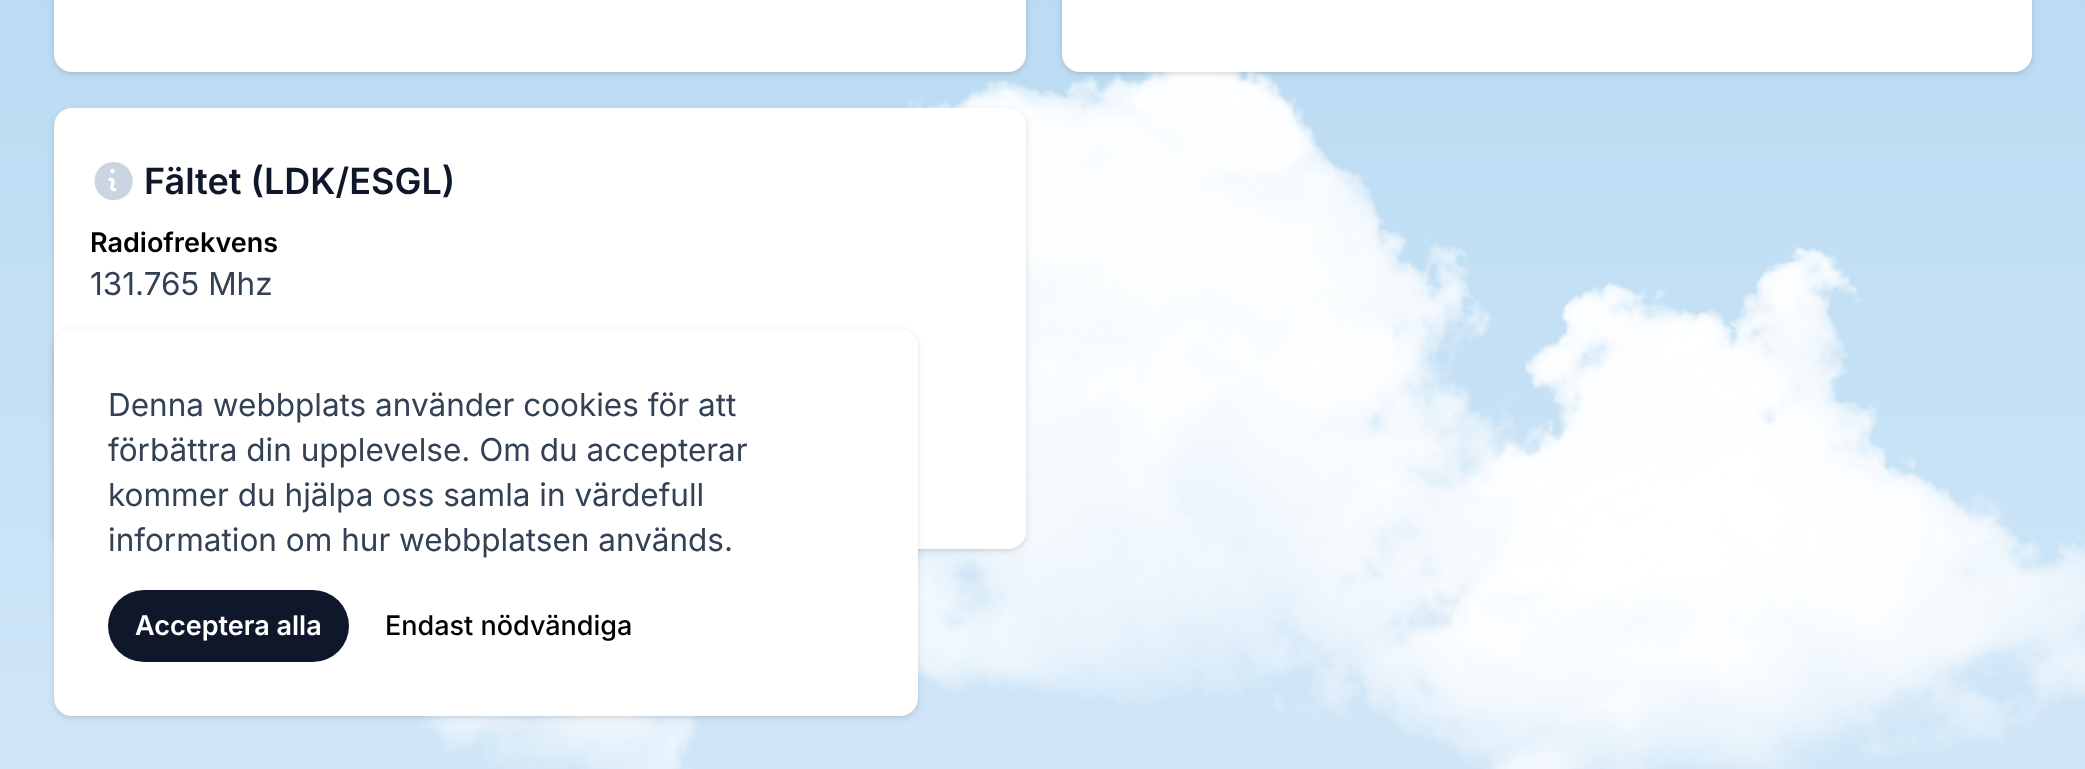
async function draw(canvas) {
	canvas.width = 2085;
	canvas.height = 769;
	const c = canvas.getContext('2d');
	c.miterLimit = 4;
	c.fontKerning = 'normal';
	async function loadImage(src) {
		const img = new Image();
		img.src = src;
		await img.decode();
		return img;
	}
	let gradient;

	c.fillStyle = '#fff';
	c.fillRect(0, 0, 2085, 769);
	gradient = c.createLinearGradient(1043, -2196, 1043, 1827);
	gradient.addColorStop(0, '#7bbbe4');
	gradient.addColorStop(1, '#eff6ff');
	c.fillStyle = gradient;
	c.fillRect(0, 0, 2085, 769);
	c.drawImage(await loadImage('img2.png'), 421, 72, 1664, 697);
	c.fillStyle = '#0000001a';
	c.filter = 'blur(2px)';
	c.beginPath();
	c.roundRect(56, -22, 968, 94, 16);
	c.fill();
	c.filter = 'none';
	c.filter = 'blur(3.5px)';
	c.beginPath();
	c.roundRect(54, -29, 972, 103, 18);
	c.fill();
	c.filter = 'none';
	c.fillStyle = '#fff';
	c.beginPath();
	c.roundRect(54, -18, 972, 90, 18);
	c.fill();
	c.fillStyle = '#0000001a';
	c.filter = 'blur(2px)';
	c.beginPath();
	c.roundRect(1064, -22, 966, 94, 16);
	c.fill();
	c.filter = 'none';
	c.filter = 'blur(3.5px)';
	c.beginPath();
	c.roundRect(1062, -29, 970, 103, 18);
	c.fill();
	c.filter = 'none';
	c.fillStyle = '#fff';
	c.beginPath();
	c.roundRect(1062, -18, 970, 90, 18);
	c.fill();
	c.fillStyle = '#0000001a';
	c.filter = 'blur(2px)';
	c.beginPath();
	c.roundRect(56, 113, 968, 436, 16);
	c.fill();
	c.filter = 'none';
	c.filter = 'blur(3.5px)';
	c.beginPath();
	c.roundRect(54, 110, 972, 441, 18);
	c.fill();
	c.filter = 'none';
	c.fillStyle = '#fff';
	c.beginPath();
	c.roundRect(54, 108, 972, 441, 18);
	c.fill();
	c.drawImage(await loadImage('img1.png'), 94, 162, 39, 39);
	c.font = '600 36px Inter';
	c.fillStyle = '#0f172a';
	c.fillText('Fältet (LDK/ESGL)', 144, 194);
	c.font = '600 27px Inter';
	c.fillStyle = '#000';
	c.fillText('Radiofrekvens', 90, 252);
	c.font = '31.5px Inter';
	c.fillStyle = '#334155';
	c.fillText('131.765 Mhz', 90, 295);
	c.fillStyle = '#0000001a';
	c.filter = 'blur(2px)';
	c.beginPath();
	c.roundRect(56, 333, 860, 383, 16);
	c.fill();
	c.filter = 'none';
	c.filter = 'blur(3.5px)';
	c.beginPath();
	c.roundRect(54, 331, 864, 387, 18);
	c.fill();
	c.filter = 'none';
	c.fillStyle = '#fff';
	c.beginPath();
	c.roundRect(54, 329, 864, 387, 18);
	c.fill();
	c.fillStyle = '#334155';
	for (const [text, x, y] of [
		['Denna webbplats använder cookies för att', 108, 416],
		['förbättra din upplevelse. Om du accepterar', 108, 461],
		['kommer du hjälpa oss samla in värdefull', 108, 506],
		['information om hur webbplatsen används.', 108, 551],
	]) {
		c.fillText(text, x, y);
	}
	c.fillStyle = '#0f172a';
	c.beginPath();
	c.roundRect(108, 590, 241, 72, 36);
	c.fill();
	c.font = '600 27px Inter';
	c.fillStyle = '#fff';
	c.fillText('Acceptera alla', 135, 635);
	c.font = '500 27px Inter';
	c.fillStyle = '#000';
	c.fillText('Endast nödvändiga', 385, 635);
}

draw(document.querySelector('canvas'));
